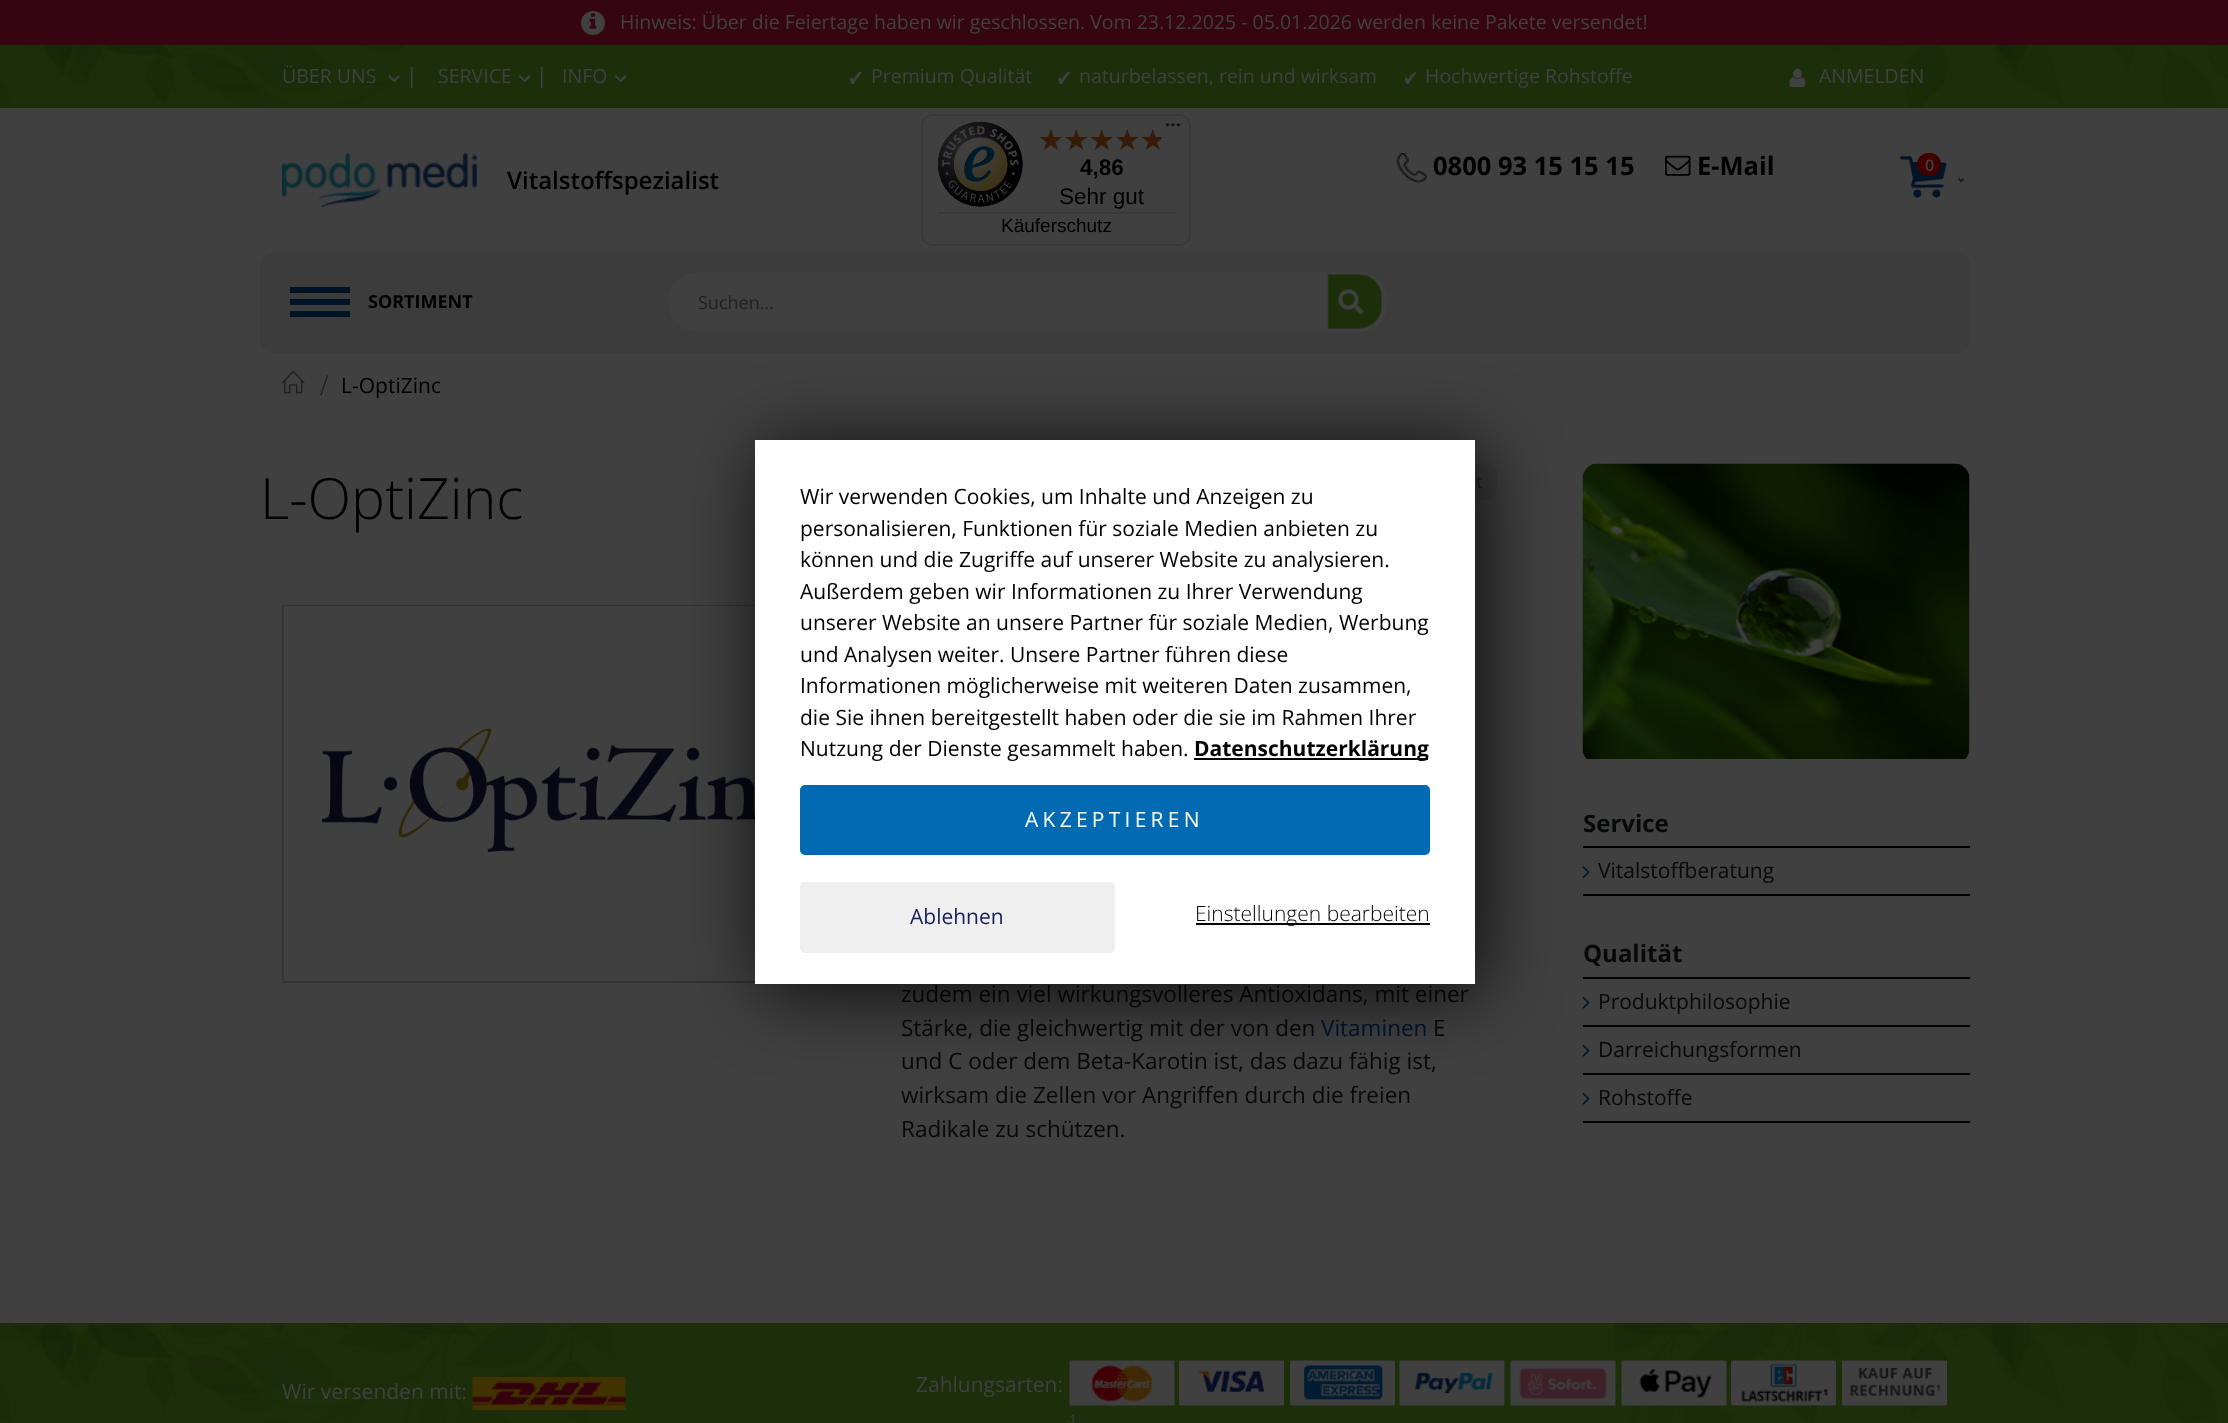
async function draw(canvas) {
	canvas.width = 2228;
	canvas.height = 1423;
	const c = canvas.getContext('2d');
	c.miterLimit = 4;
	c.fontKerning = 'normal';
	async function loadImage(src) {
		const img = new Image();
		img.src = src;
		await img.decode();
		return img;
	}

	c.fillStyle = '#404040';
	c.fillRect(0, 0, 2228, 1423);
	c.fillStyle = '#360512';
	c.fillRect(0, 0, 2228, 45);
	c.fillStyle = '#404040';
	c.beginPath();
	c.arc(593, 23, 12, 0, 2 * Math.PI);
	c.fill();
	c.drawImage(await loadImage('img1.png'), 589, 13, 8, 16);
	c.font = '19.5px Open Sans';
	c.fillText('Hinweis: Über die Feiertage haben wir geschlossen. Vom 23.12.2025 - 05.01.2026 werden keine Pakete versendet!', 620, 29);
	c.fillStyle = '#1c2e0a';
	c.fillRect(403, 45, 1423, 63);
	c.drawImage(await loadImage('img2.png'), 0, 45, 2228, 63);
	c.fillStyle = '#404040';
	c.fillText('ÜBER UNS', 282, 83);
	c.drawImage(await loadImage('img3.png'), 388, 75, 12, 7);
	c.font = '21px Open Sans';
	c.fillText('|', 406, 83);
	c.font = '19.5px Open Sans';
	c.fillText('SERVICE', 438, 83);
	c.drawImage(await loadImage('img4.png'), 519, 75, 12, 7);
	c.font = '21px Open Sans';
	c.fillText('|', 536, 83);
	c.font = '19.5px Open Sans';
	c.fillText('INFO', 562, 83);
	c.drawImage(await loadImage('img4.png'), 615, 75, 12, 7);
	c.drawImage(await loadImage('img5.png'), 849, 72, 13, 12);
	c.fillText('Premium Qualität', 871, 83);
	c.drawImage(await loadImage('img6.png'), 1058, 72, 13, 12);
	c.fillText('naturbelassen, rein und wirksam', 1079, 83);
	c.drawImage(await loadImage('img5.png'), 1404, 72, 13, 12);
	c.fillText('Hochwertige Rohstoffe', 1425, 83);
	c.drawImage(await loadImage('img7.png'), 1789, 69, 17, 18);
	c.fillText('ANMELDEN', 1819, 83);
	c.beginPath();
	c.roundRect(922, 115, 268, 130, 11);
	c.strokeStyle = '#393939';
	c.lineWidth = 2;
	c.stroke();
	c.drawImage(await loadImage('img8.png'), 1166, 123, 14, 4);
	c.drawImage(await loadImage('img9.png'), 938, 122, 85, 85);
	c.drawImage(await loadImage('img14.png'), 1043, 129, 19, 21);
	c.drawImage(await loadImage('img10.png'), 1040, 129, 22, 21);
	c.drawImage(await loadImage('img15.png'), 1065, 129, 22, 21);
	c.drawImage(await loadImage('img11.png'), 1065, 129, 23, 21);
	c.drawImage(await loadImage('img16.png'), 1091, 129, 22, 21);
	c.drawImage(await loadImage('img12.png'), 1091, 129, 22, 21);
	c.drawImage(await loadImage('img15.png'), 1116, 129, 22, 21);
	c.drawImage(await loadImage('img11.png'), 1116, 129, 23, 21);
	c.drawImage(await loadImage('img16.png'), 1142, 129, 22, 21);
	c.drawImage(await loadImage('img13.png'), 1142, 129, 19, 21);
	c.font = 'bold 22.5px Liberation Sans';
	c.fillStyle = '#000';
	c.fillText('4,86', 1080, 175);
	c.font = '22.5px Liberation Sans';
	c.fillText('Sehr gut', 1059, 204);
	c.fillStyle = '#393939';
	c.fillRect(938, 212, 238, 2);
	c.font = '19px Liberation Sans';
	c.fillStyle = '#000';
	c.fillText('Käuferschutz', 1001, 232);
	c.drawImage(await loadImage('img17.png'), 1396, 153, 31, 30);
	c.font = 'bold 25.5px Open Sans';
	c.fillText('0800 93 15 15 15', 1433, 175);
	c.drawImage(await loadImage('img18.png'), 1665, 155, 26, 21);
	c.fillText('E-Mail', 1697, 175);
	c.drawImage(await loadImage('img19.png'), 1899, 156, 48, 42);
	c.fillStyle = '#400000';
	c.beginPath();
	c.roundRect(1919, 153, 22, 23, 11);
	c.fill();
	c.beginPath();
	c.arc(1928.5, 164.5, 11.5, 0, 2 * Math.PI);
	c.fill();
	c.font = '600 16px Open Sans';
	c.fillStyle = '#404040';
	c.fillText('0', 1925, 171);
	c.fillStyle = '#1b1b1b';
	c.beginPath();
	c.moveTo(1963.5, 178);
	c.lineTo(1964.5, 179);
	c.lineTo(1961, 182.5);
	c.lineTo(1960, 181);
	c.closePath();
	c.fill();
	c.beginPath();
	c.moveTo(1959, 178);
	c.lineTo(1962.5, 181);
	c.lineTo(1961, 182.5);
	c.lineTo(1958, 179);
	c.closePath();
	c.fill();
	c.drawImage(await loadImage('img20.png'), 282, 153, 195, 54);
	c.font = '600 24px Open Sans';
	c.fillStyle = '#000';
	c.fillText('Vitalstoffspezialist', 507, 189);
	c.fillStyle = '#3c3c3c';
	c.beginPath();
	c.roundRect(260, 252, 1710, 101, 15);
	c.fill();
	for (const [x, y, w, h, color] of [
		[290, 287, 60, 6, '#001428'],
		[290, 299, 60, 6, '#001428'],
		[290, 311, 60, 6, '#001428'],
	]) {
		c.fillStyle = color;
		c.fillRect(x, y, w, h);
	}
	c.font = 'bold 18px Open Sans';
	c.fillStyle = '#000';
	c.fillText('SORTIMENT', 368, 308);
	c.fillStyle = '#404040';
	c.beginPath();
	c.roundRect(668, 272, 720, 60, 30);
	c.fill();
	c.font = '18px Open Sans';
	c.fillStyle = '#202020';
	c.fillText('Suchen…', 698, 309);
	c.drawImage(await loadImage('img21.png'), 1327, 274, 55, 55);
	c.drawImage(await loadImage('img22.png'), 282, 370, 23, 24);
	c.font = '30px Liberation Serif';
	c.fillText('/', 320, 395);
	c.font = '21px Open Sans';
	c.fillStyle = '#000';
	c.fillText('L-OptiZinc', 341, 393);
	c.font = '300 57px Open Sans';
	c.fillText('L-OptiZinc', 260, 519);
	c.fillStyle = '#3c3c3c';
	c.beginPath();
	c.roundRect(1208, 464, 289, 36, 11);
	c.fill();
	c.font = '18px Open Sans';
	c.fillStyle = '#202020';
	c.fillText('t', 1476, 488);
	c.strokeStyle = '#333';
	c.strokeRect(283, 606, 573, 376);
	c.drawImage(await loadImage('img23.png'), 283, 606, 472, 375);
	c.font = '22.5px Open Sans';
	c.fillStyle = '#08090a';
	c.fillText('zudem ein viel wirkungsvolleres Antioxidans, mit einer', 901, 1002);
	c.fillText('Stärke, die gleichwertig mit der von den', 901, 1036);
	c.fillStyle = '#00162e';
	c.fillText('Vitaminen', 1321, 1036);
	c.fillStyle = '#08090a';
	for (const [text, x, y] of [
		['E', 1433, 1036],
		['und C oder dem Beta-Karotin ist, das dazu fähig ist,', 901, 1069],
		['wirksam die Zellen vor Angriffen durch die freien', 901, 1103],
		['Radikale zu schützen.', 901, 1137],
	]) {
		c.fillText(text, x, y);
	}
	c.drawImage(await loadImage('img24.png'), 1582, 463, 388, 296);
	c.font = 'bold 24px Open Sans';
	c.fillText('Service', 1583, 832);
	c.fillStyle = '#000';
	c.fillRect(1583, 846, 387, 2);
	c.fillRect(1583, 894, 387, 2);
	c.drawImage(await loadImage('img25.png'), 1582, 866, 8, 12);
	c.font = '21px Open Sans';
	c.fillStyle = '#08090a';
	c.fillText('Vitalstoffberatung', 1598, 878);
	c.font = 'bold 24px Open Sans';
	c.fillText('Qualität', 1583, 962);
	c.fillStyle = '#000';
	c.fillRect(1583, 977, 387, 2);
	c.drawImage(await loadImage('img26.png'), 1582, 997, 8, 12);
	c.font = '21px Open Sans';
	c.fillStyle = '#08090a';
	c.fillText('Produktphilosophie', 1598, 1009);
	c.fillStyle = '#000';
	c.fillRect(1583, 1025, 387, 2);
	c.drawImage(await loadImage('img26.png'), 1582, 1045, 8, 12);
	c.fillStyle = '#08090a';
	c.fillText('Darreichungsformen', 1598, 1057);
	c.fillStyle = '#000';
	c.fillRect(1583, 1073, 387, 2);
	c.fillRect(1583, 1121, 387, 2);
	c.drawImage(await loadImage('img26.png'), 1582, 1093, 8, 12);
	c.fillStyle = '#08090a';
	c.fillText('Rohstoffe', 1598, 1105);
	c.fillStyle = '#1c2e0a';
	c.fillRect(615, 1323, 999, 100);
	c.drawImage(await loadImage('img27.png'), 0, 1323, 2228, 100);
	c.fillStyle = '#404040';
	c.fillText('Wir versenden mit:', 282, 1399);
	c.drawImage(await loadImage('img28.png'), 472, 1377, 154, 33);
	c.fillText('Zahlungsarten:', 916, 1392);
	c.drawImage(await loadImage('img29.png'), 1069, 1360, 106, 46);
	c.drawImage(await loadImage('img30.png'), 1179, 1360, 105, 46);
	c.drawImage(await loadImage('img31.png'), 1290, 1360, 105, 46);
	c.drawImage(await loadImage('img32.png'), 1399, 1360, 106, 46);
	c.drawImage(await loadImage('img33.png'), 1510, 1360, 106, 46);
	c.drawImage(await loadImage('img34.png'), 1621, 1360, 106, 46);
	c.drawImage(await loadImage('img35.png'), 1731, 1360, 105, 46);
	c.drawImage(await loadImage('img36.png'), 1842, 1360, 105, 46);
	c.font = '13px Open Sans';
	c.fillText('1', 1069, 1424);
	c.fillStyle = '#000000cc';
	c.filter = 'blur(37.5px)';
	c.beginPath();
	c.rect(762, 447, 720, 545);
	c.fill();
	c.filter = 'none';
	c.fillStyle = '#fff';
	c.fillRect(755, 440, 720, 544);
	c.font = '21px Open Sans';
	c.fillStyle = '#000';
	for (const [text, x, y] of [
		['Wir verwenden Cookies, um Inhalte und Anzeigen zu', 800, 504],
		['personalisieren, Funktionen für soziale Medien anbieten zu', 800, 536],
		['können und die Zugriffe auf unserer Website zu analysieren.', 800, 567],
		['Außerdem geben wir Informationen zu Ihrer Verwendung', 800, 599],
		['unserer Website an unsere Partner für soziale Medien, Werbung', 800, 630],
		['und Analysen weiter. Unsere Partner führen diese', 800, 662],
		['Informationen möglicherweise mit weiteren Daten zusammen,', 800, 693],
		['die Sie ihnen bereitgestellt haben oder die sie im Rahmen Ihrer', 800, 725],
		['Nutzung der Dienste gesammelt haben.', 800, 756],
	]) {
		c.fillText(text, x, y);
	}
	c.fillRect(1194, 758, 234, 2);
	c.font = 'bold 21px Open Sans';
	c.fillText('Datenschutzerklärung', 1194, 756);
	c.fillStyle = '#006ab3';
	c.beginPath();
	c.roundRect(800, 785, 630, 70, 5);
	c.fill();
	c.letterSpacing = '4.25px';
	c.font = '21px Open Sans';
	c.fillStyle = '#fff';
	c.fillText('AKZEPTIEREN', 1025, 827);
	c.fillStyle = '#efefef';
	c.beginPath();
	c.roundRect(800, 882, 315, 71, 5);
	c.fill();
	c.letterSpacing = '0px';
	c.fillStyle = '#161f57';
	c.fillText('Ablehnen', 910, 924);
	c.fillStyle = '#000';
	c.fillRect(1196, 923, 234, 2);
	c.font = '300 21px Open Sans';
	c.fillText('Einstellungen bearbeiten', 1195, 921);
}

draw(document.querySelector('canvas'));
